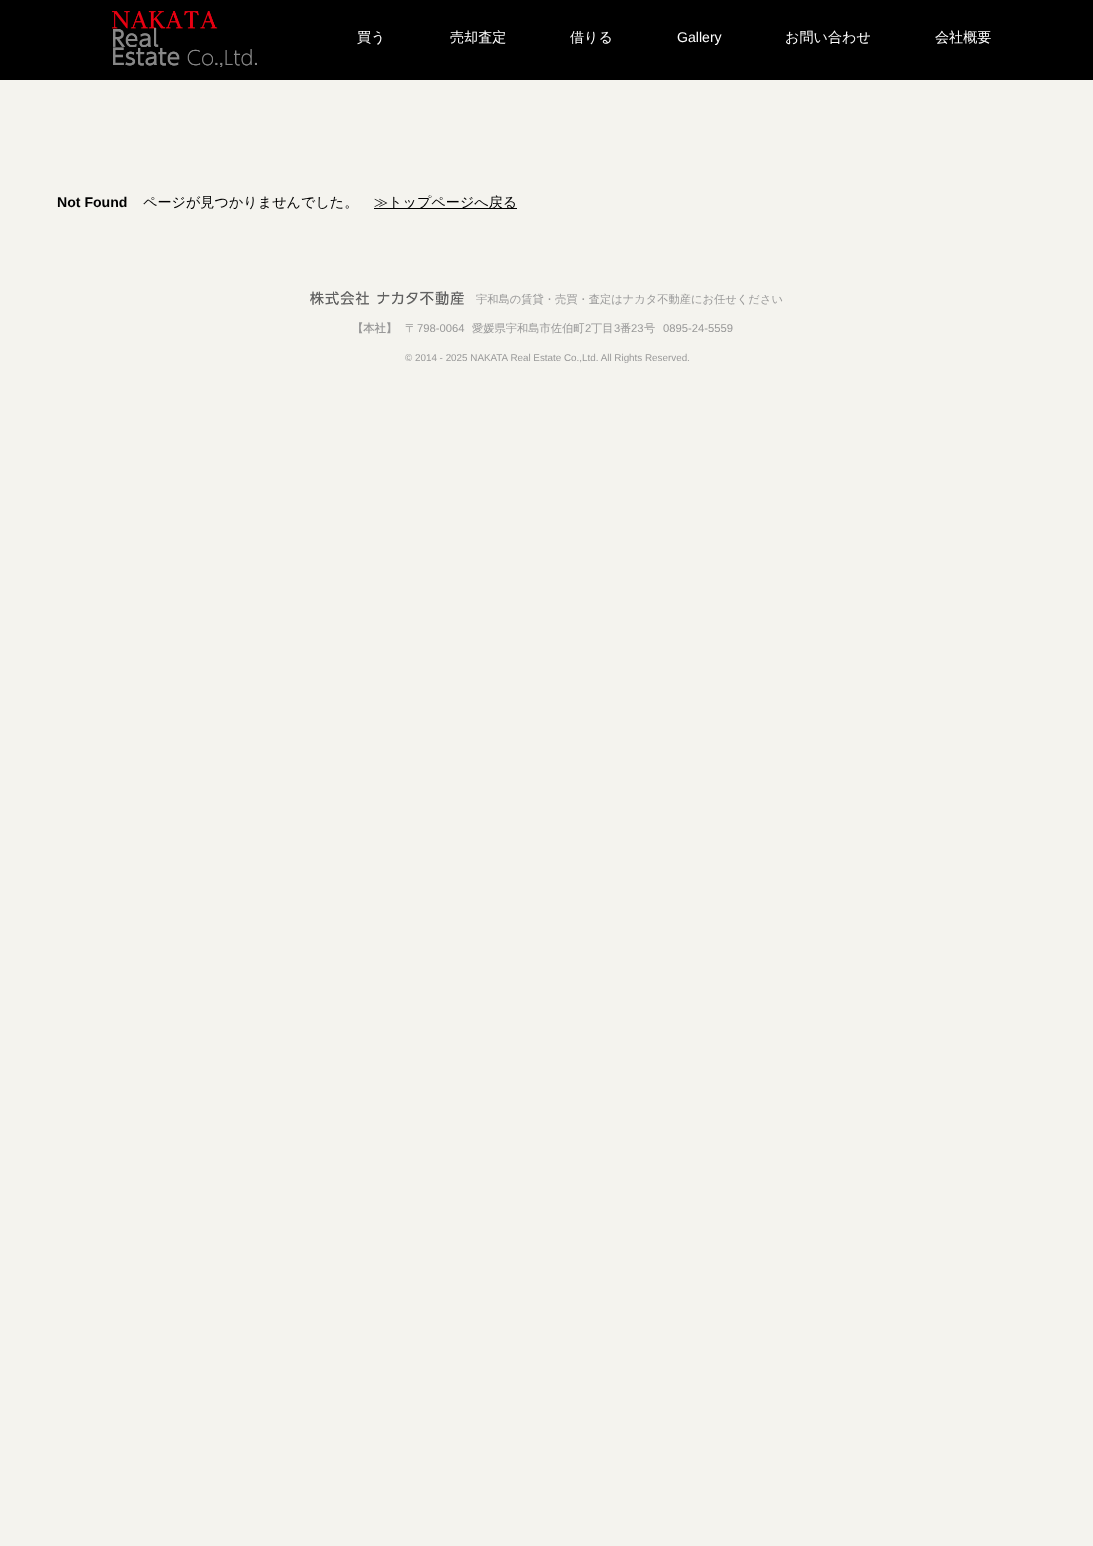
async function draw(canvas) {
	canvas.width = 1093;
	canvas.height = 1546;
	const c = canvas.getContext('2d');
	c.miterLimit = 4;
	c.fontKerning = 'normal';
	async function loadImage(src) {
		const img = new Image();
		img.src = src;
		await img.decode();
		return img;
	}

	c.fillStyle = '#f4f3ee';
	c.fillRect(0, 0, 1093, 1546);
	c.fillStyle = '#000';
	c.fillRect(0, 0, 1093, 80);
	c.drawImage(await loadImage('img1.png'), 112, 11, 145, 56);
	c.font = '500 14.1px WenQuanYi Zen Hei';
	c.fillStyle = '#fff';
	for (const [text, x, y] of [
		['買う', 357, 42],
		['売却査定', 450, 42],
		['借りる', 570, 42],
	]) {
		c.fillText(text, x, y);
	}
	c.font = '14.1px Liberation Sans';
	c.fillText('Gallery', 677, 42);
	c.font = '500 14.1px WenQuanYi Zen Hei';
	c.fillText('お問い合わせ', 785, 42);
	c.fillText('会社概要', 935, 42);
	c.font = 'bold 14.1px Liberation Sans';
	c.fillStyle = '#000';
	c.fillText('Not Found', 57, 207);
	c.font = '500 14.1px WenQuanYi Zen Hei';
	c.fillText('ページが見つかりませんでした。', 143, 207);
	c.fillRect(374, 208, 143, 1);
	c.fillText('≫トップページへ戻る', 374, 207);
	c.drawImage(await loadImage('img2.png'), 310, 291, 154, 14);
	c.font = '500 11.25px WenQuanYi Zen Hei';
	c.fillStyle = '#999';
	c.fillText('宇和島の賃貸・売買・査定はナカタ不動産にお任せください', 476, 303);
	c.font = 'bold 11.25px WenQuanYi Zen Hei';
	c.fillText('【本社】', 352, 332);
	c.font = '500 11.25px WenQuanYi Zen Hei';
	c.fillText('〒', 405, 332);
	c.font = '11.25px Liberation Sans';
	c.fillText('798-0064', 417, 332);
	c.font = '500 11.25px WenQuanYi Zen Hei';
	c.fillText('愛媛県宇和島市佐伯町', 472, 332);
	c.font = '11.25px Liberation Sans';
	c.fillText('2', 585, 332);
	c.font = '500 11.25px WenQuanYi Zen Hei';
	c.fillText('丁目', 591, 332);
	c.font = '11.25px Liberation Sans';
	c.fillText('3', 614, 332);
	c.font = '500 11.25px WenQuanYi Zen Hei';
	c.fillText('番', 620, 332);
	c.font = '11.25px Liberation Sans';
	c.fillText('23', 631, 332);
	c.font = '500 11.25px WenQuanYi Zen Hei';
	c.fillText('号', 644, 332);
	c.font = '11.25px Liberation Sans';
	c.fillText('0895-24-5559', 663, 332);
	c.font = '9.85px Liberation Sans';
	c.fillText('© 2014 - 2025 NAKATA Real Estate Co.,Ltd. All Rights Reserved.', 405, 361);
}

draw(document.querySelector('canvas'));
